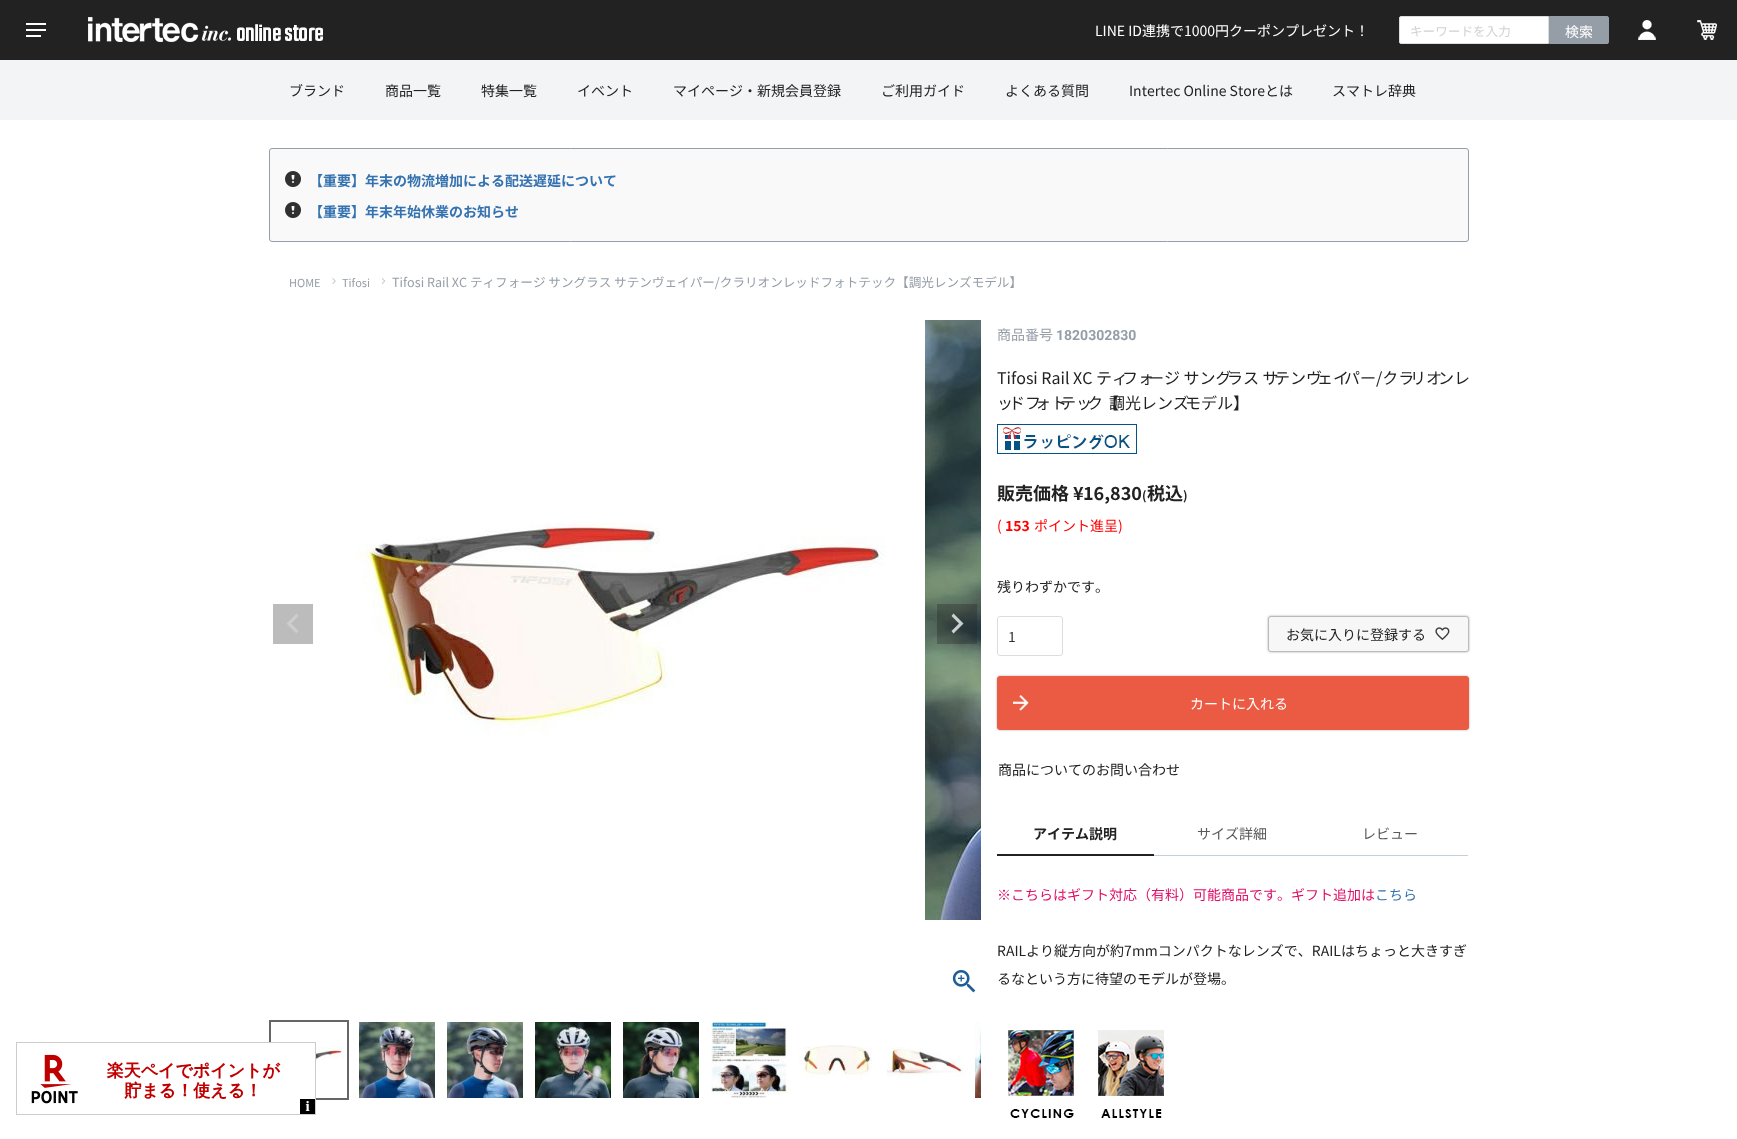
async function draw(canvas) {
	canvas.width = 1737;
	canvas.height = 1139;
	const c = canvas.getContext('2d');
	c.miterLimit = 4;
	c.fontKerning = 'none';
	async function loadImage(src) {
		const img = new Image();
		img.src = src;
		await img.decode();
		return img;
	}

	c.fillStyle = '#fff';
	c.fillRect(0, 0, 1737, 1139);
	for (const [x, y, w, h, color] of [
		[0, 0, 1737, 60, '#222'],
		[26, 29, 20, 2, '#fff'],
		[26, 23, 20, 2, '#fff'],
		[26, 35, 15, 2, '#fff'],
	]) {
		c.fillStyle = color;
		c.fillRect(x, y, w, h);
	}
	c.drawImage(await loadImage('img1.png'), 88, 17, 235, 25);
	c.font = '14px Noto Sans JP';
	c.fillText('LINE ID連携で1000円クーポンプレゼント！', 1095, 36);
	c.beginPath();
	c.roundRect(1399.5, 16.5, 149, 27, [1.5, 0, 0, 1.5]);
	c.fill();
	c.strokeStyle = '#ddd';
	c.stroke();
	c.font = '12.6px Noto Sans JP';
	c.fillStyle = '#d1d1d1';
	c.fillText('キーワードを入力', 1410, 36);
	c.fillStyle = '#959ea7';
	c.beginPath();
	c.roundRect(1549.5, 16.5, 59, 27, [0, 1.5, 1.5, 0]);
	c.fill();
	c.strokeStyle = '#959ea7';
	c.stroke();
	c.font = '14px Noto Sans JP';
	c.fillStyle = '#fff';
	c.fillText('検索', 1565, 37);
	c.drawImage(await loadImage('img2.png'), 1638, 20, 18, 20);
	c.drawImage(await loadImage('img3.png'), 1697, 20, 20, 20);
	c.fillStyle = '#f3f4f5';
	c.fillRect(0, 60, 1737, 60);
	c.fillStyle = '#222';
	for (const [text, x, y] of [
		['ブランド', 289, 96],
		['商品一覧', 385, 96],
		['特集一覧', 481, 96],
		['イベント', 577, 96],
		['マイページ・新規会員登録', 673, 96],
		['ご利用ガイド', 881, 96],
		['よくある質問', 1005, 96],
		['Intertec Online Storeとは', 1129, 96],
		['スマトレ辞典', 1332, 96],
	]) {
		c.fillText(text, x, y);
	}
	c.fillStyle = '#f9f9fa';
	c.beginPath();
	c.roundRect(269.5, 148.5, 1199, 93, 2.5);
	c.fill();
	c.stroke();
	c.drawImage(await loadImage('img4.png'), 285, 171, 16, 16);
	c.font = 'bold 14px Noto Sans JP';
	c.fillStyle = '#3572b0';
	c.fillText('【重要】年末の物流増加による配送遅延について', 309, 186);
	c.drawImage(await loadImage('img4.png'), 285, 202, 16, 16);
	c.fillText('【重要】年末年始休業のお知らせ', 309, 217);
	c.font = '11px Noto Sans JP';
	c.fillStyle = '#959ea7';
	c.fillText('HOME', 289, 287);
	c.fillStyle = '#ccc';
	c.beginPath();
	c.moveTo(332.5, 277.5);
	c.lineTo(336, 281);
	c.lineTo(334.5, 281);
	c.lineTo(332.5, 279);
	c.closePath();
	c.moveTo(336, 281);
	c.lineTo(332.5, 284.5);
	c.lineTo(332.5, 283);
	c.lineTo(334.5, 281);
	c.closePath();
	c.fill();
	c.fillStyle = '#959ea7';
	c.fillText('Tifosi', 342, 287);
	c.fillStyle = '#ccc';
	c.beginPath();
	c.moveTo(382, 277.5);
	c.lineTo(385.5, 281);
	c.lineTo(384, 281);
	c.lineTo(382, 279);
	c.closePath();
	c.moveTo(385.5, 281);
	c.lineTo(382, 284.5);
	c.lineTo(382, 283);
	c.lineTo(384, 281);
	c.closePath();
	c.fill();
	c.font = '12.6px Noto Sans JP';
	c.fillStyle = '#959ea7';
	c.fillText('Tifosi Rail XC ティフォージ サングラス サテンヴェイパー/クラリオンレッドフォトテック【調光レンズモデル】', 392, 287);
	c.fillStyle = '#bcbcbc';
	c.fillRect(273, 604, 40, 40);
	c.fillStyle = '#cdcdcd';
	c.beginPath();
	c.moveTo(298.5, 616);
	c.lineTo(296.5, 613.5);
	c.lineTo(286.5, 623.5);
	c.lineTo(296.5, 633.5);
	c.lineTo(298.5, 631);
	c.lineTo(291, 623.5);
	c.closePath();
	c.fill();
	c.drawImage(await loadImage('img5.png'), 356, 522, 529, 214);
	c.drawImage(await loadImage('img6.png'), 925, 320, 56, 600);
	c.fillStyle = '#1e1e1e4d';
	c.fillRect(937, 604, 40, 40);
	c.fillStyle = '#ffffffbf';
	c.beginPath();
	c.moveTo(953.5, 613.5);
	c.lineTo(951.5, 616);
	c.lineTo(959, 623.5);
	c.lineTo(951.5, 631);
	c.lineTo(953.5, 633.5);
	c.lineTo(963.5, 623.5);
	c.closePath();
	c.fill();
	c.drawImage(await loadImage('img7.png'), 952, 970, 24, 23);
	c.strokeStyle = '#666';
	c.lineWidth = 2;
	c.strokeRect(270, 1021, 78, 78);
	c.drawImage(await loadImage('img8.png'), 316, 1046, 28, 30);
	c.drawImage(await loadImage('img9.png'), 359, 1022, 76, 76);
	c.drawImage(await loadImage('img10.png'), 447, 1022, 76, 76);
	c.drawImage(await loadImage('img11.png'), 535, 1022, 76, 76);
	c.drawImage(await loadImage('img12.png'), 623, 1022, 76, 76);
	c.drawImage(await loadImage('img13.png'), 711, 1022, 76, 76);
	c.drawImage(await loadImage('img14.png'), 799, 1045, 73, 37);
	c.drawImage(await loadImage('img15.png'), 887, 1047, 76, 30);
	c.drawImage(await loadImage('img16.png'), 975, 1022, 6, 76);
	c.font = '14px Noto Sans JP';
	c.fillStyle = '#959ea7';
	c.fillText('商品番号', 997, 340);
	c.font = 'bold 14px Roboto';
	c.fillText('1820302830', 1056, 340);
	c.font = '16px Noto Sans JP';
	c.fillStyle = '#222';
	c.fillText('Tifosi Rail XC ティ', 997, 384);
	c.fillText('フォ', 1122, 384);
	c.fillText('ージ サング', 1148, 384);
	c.fillText('ラス サ', 1227, 384);
	c.fillText('テンヴ', 1274, 384);
	c.fillText('ェイ', 1317, 384);
	c.fillText('パー/クラ', 1344, 384);
	c.fillText('リオ', 1410, 384);
	c.fillText('ンレ', 1438, 384);
	c.fillText('ッ', 997, 409);
	c.fillText('ドフ', 1009, 409);
	c.fillText('ォト', 1035, 409);
	c.fillText('テッ', 1060, 409);
	c.fillText('ク【', 1087, 409);
	c.fillText('調光レンズ', 1109, 409);
	c.fillText('モデル】', 1185, 409);
	c.drawImage(await loadImage('img17.png'), 997, 424, 140, 30);
	c.font = 'bold 18px Noto Sans JP';
	for (const [text, x, y] of [
		['販売価格', 997, 500],
		['¥', 1073, 500],
		['16,830', 1083, 500],
	]) {
		c.fillText(text, x, y);
	}
	c.font = 'bold 12px Noto Sans JP';
	c.fillText('(', 1142, 500);
	c.font = 'bold 18px Noto Sans JP';
	c.fillText('税込', 1147, 500);
	c.font = 'bold 12px Noto Sans JP';
	c.fillText(')', 1183, 500);
	c.font = '14px Noto Sans JP';
	c.fillStyle = '#f00';
	c.fillText('(', 997, 531);
	c.font = 'bold 14px Noto Sans JP';
	c.fillText('153', 1005, 531);
	c.font = '14px Noto Sans JP';
	c.fillText('ポイント進呈)', 1034, 531);
	c.fillStyle = '#222';
	c.fillText('残りわずかです。', 997, 592);
	c.beginPath();
	c.roundRect(997.5, 616.5, 65, 39, 2.5);
	c.strokeStyle = '#ddd';
	c.lineWidth = 1;
	c.stroke();
	c.fillStyle = '#333';
	c.fillText('1', 1008, 642);
	c.fillStyle = '#b2b2b2';
	c.filter = 'blur(1px)';
	c.beginPath();
	c.roundRect(1268, 616, 201, 36, 3);
	c.fill();
	c.filter = 'none';
	c.fillStyle = '#f7f7f7';
	c.beginPath();
	c.roundRect(1268.5, 616.5, 200, 35, 2.5);
	c.fill();
	c.strokeStyle = '#bbb';
	c.stroke();
	c.fillStyle = '#222';
	c.fillText('お気に入りに登録する', 1286, 640);
	c.drawImage(await loadImage('img18.png'), 1435, 627, 15, 14);
	c.fillStyle = '#b2b2b2';
	c.filter = 'blur(1px)';
	c.beginPath();
	c.roundRect(997, 676, 472, 54, 3);
	c.fill();
	c.filter = 'none';
	c.fillStyle = '#eb5b44';
	c.beginPath();
	c.roundRect(997.5, 676.5, 471, 53, 2.5);
	c.fill();
	c.strokeStyle = '#eb5b44';
	c.stroke();
	c.drawImage(await loadImage('img19.png'), 1013, 695, 16, 16);
	c.fillStyle = '#fff';
	c.fillText('カートに入れる', 1190, 709);
	c.fillStyle = '#222';
	c.fillText('商品についてのお問い合わせ', 998, 775);
	c.font = 'bold 14px Noto Sans JP';
	c.fillText('アイテム説明', 1033, 839);
	c.fillRect(997, 854, 157, 2);
	c.font = '14px Noto Sans JP';
	c.fillStyle = '#595959';
	c.fillText('サイズ詳細', 1197, 839);
	c.fillStyle = '#c6d0d8';
	c.fillRect(1154, 855, 314, 1);
	c.fillStyle = '#595959';
	c.fillText('レビュー', 1362, 839);
	c.fillStyle = '#df1068';
	c.fillText('※こちらはギフト対応（有料）可能商品です。ギフト追加は', 997, 900);
	c.fillStyle = '#3572b0';
	c.fillText('こちら', 1375, 900);
	c.fillStyle = '#222';
	c.fillText('RAILより縦方向が約7mmコンパクトなレンズで、RAILはちょっと大きすぎ', 997, 956);
	c.fillText('るなという方に待望のモデルが登場。', 997, 984);
	c.drawImage(await loadImage('img20.png'), 1008, 1027, 69, 91);
	c.drawImage(await loadImage('img21.png'), 1098, 1030, 67, 88);
	c.drawImage(await loadImage('img22.png'), 16, 1042, 300, 73);
}

draw(document.querySelector('canvas'));
